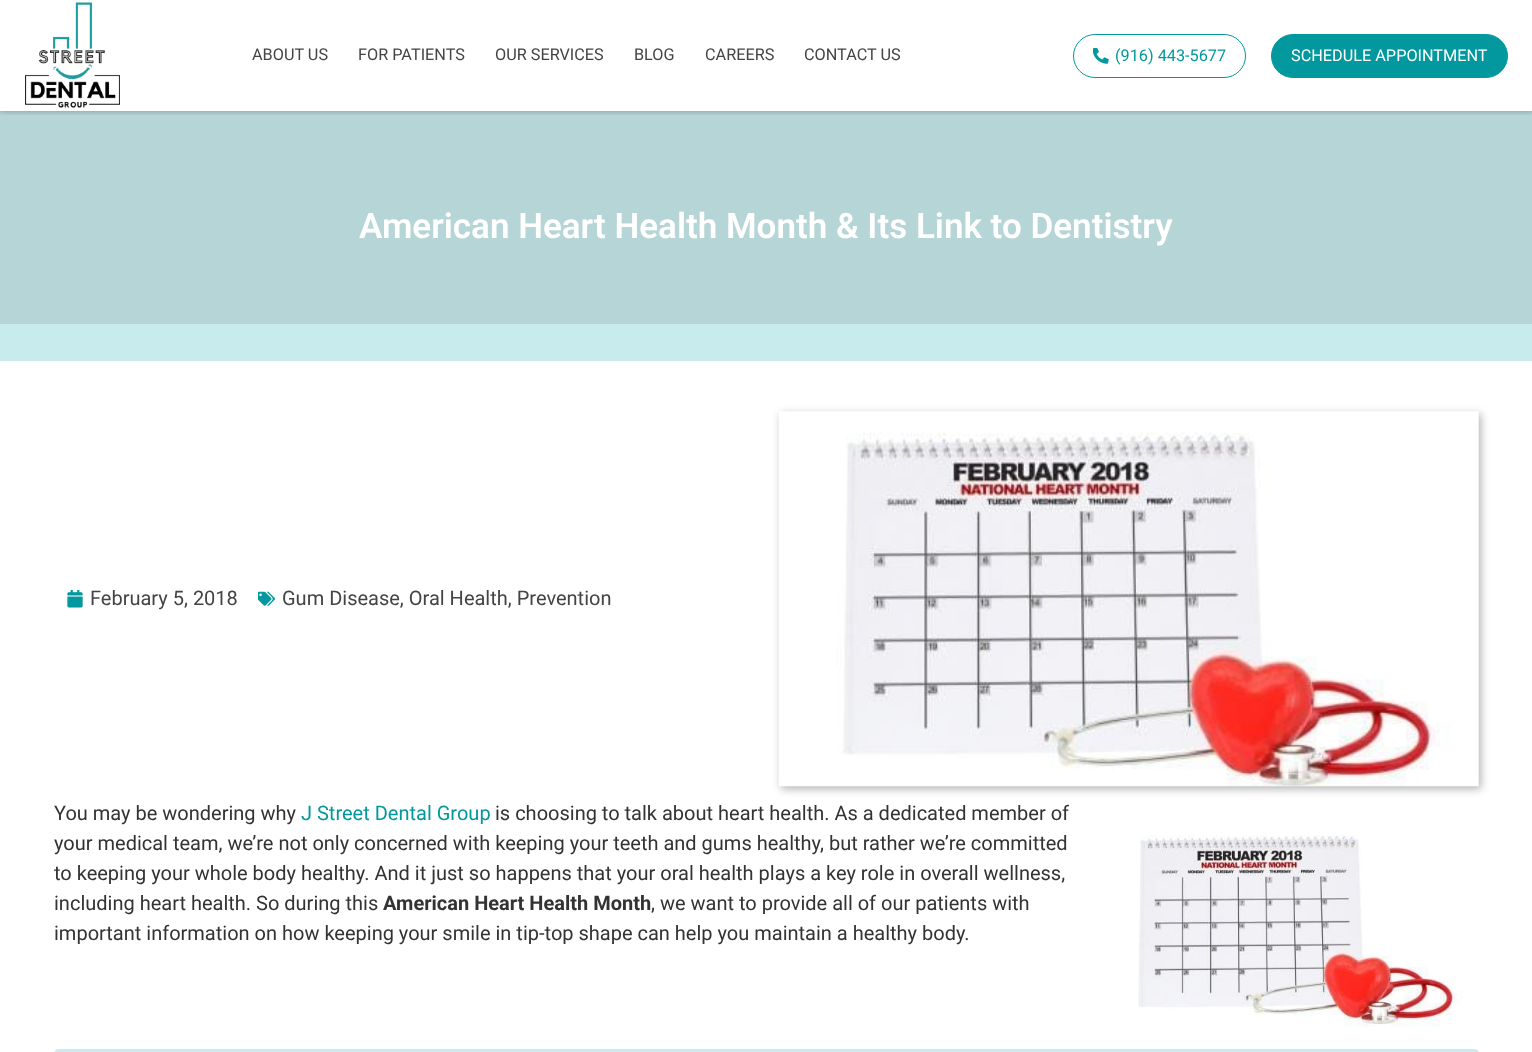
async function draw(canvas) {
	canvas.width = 1532;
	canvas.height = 1052;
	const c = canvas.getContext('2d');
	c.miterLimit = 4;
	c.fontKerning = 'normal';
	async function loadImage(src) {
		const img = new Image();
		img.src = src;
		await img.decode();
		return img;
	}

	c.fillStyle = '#fff';
	c.fillRect(0, 0, 1532, 1052);
	c.fillStyle = '#b6d5d6';
	c.fillRect(0, 111, 1532, 213);
	c.save();
	c.beginPath();
	c.rect(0, 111, 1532, 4);
	c.clip();
	c.fillStyle = '#0000004d';
	c.filter = 'blur(3px)';
	c.beginPath();
	c.rect(0, 0, 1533, 111);
	c.fill();
	c.filter = 'none';
	c.restore();
	c.drawImage(await loadImage('img1.png'), 25, 2, 95, 106);
	c.font = '16.25px Roboto';
	c.fillStyle = '#444';
	for (const [text, x, y] of [
		['ABOUT US', 252, 60],
		['FOR PATIENTS', 358, 60],
		['OUR SERVICES', 495, 60],
		['BLOG', 634, 60],
		['CAREERS', 705, 60],
		['CONTACT US', 804, 60],
	]) {
		c.fillText(text, x, y);
	}
	c.beginPath();
	c.roundRect(1073.5, 34.5, 172, 43, 21.5);
	c.strokeStyle = '#03989e';
	c.stroke();
	c.drawImage(await loadImage('img2.png'), 1093, 48, 16, 16);
	c.fillStyle = '#03989e';
	c.fillText('(916) 443-5677', 1115, 61);
	c.beginPath();
	c.roundRect(1271.5, 34.5, 236, 43, 21.5);
	c.fill();
	c.stroke();
	c.fillStyle = '#fff';
	c.fillText('SCHEDULE APPOINTMENT', 1291, 61);
	c.font = '600 35px Roboto';
	c.fillText('American Heart Health Month & Its Link to Dentistry', 359, 238);
	c.fillStyle = '#c8eced';
	c.fillRect(0, 324, 1532, 37);
	c.drawImage(await loadImage('img3.png'), 67, 590, 16, 18);
	c.font = '20px Roboto';
	c.fillStyle = '#444';
	c.fillText('February 5, 2018', 90, 605);
	c.drawImage(await loadImage('img4.png'), 258, 591, 17, 15);
	c.fillText('Gum Disease, Oral Health, Prevention', 282, 605);
	c.fillStyle = '#0000004d';
	c.filter = 'blur(4.5px)';
	c.beginPath();
	c.rect(781, 414, 700, 375);
	c.fill();
	c.filter = 'none';
	c.drawImage(await loadImage('img5.png'), 778, 411, 701, 376);
	c.fillStyle = '#333';
	c.fillText('You may be wondering why', 54, 820);
	c.fillStyle = '#03989e';
	c.fillText('J Street Dental Group', 301, 820);
	c.fillStyle = '#333';
	c.fillText('is choosing to talk about heart health. As a dedicated member of', 495, 820);
	c.fillText('your medical team, we’re not only concerned with keeping your teeth and gums healthy, but rather we’re committed', 54, 850);
	c.drawImage(await loadImage('img6.png'), 1138, 835, 325, 192);
	c.fillText('to keeping your whole body healthy. And it just so happens that your oral health plays a key role in overall wellness,', 54, 880);
	c.fillText('including heart health. So during this', 54, 910);
	c.font = 'bold 20px Roboto';
	c.fillText('American Heart Health Month', 383, 910);
	c.font = '20px Roboto';
	c.fillText(', we want to provide all of our patients with', 651, 910);
	c.fillText('important information on how keeping your smile in tip-top shape can help you maintain a healthy body.', 54, 940);
	c.beginPath();
	c.roundRect(54.5, 1049.5, 1424, 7, 3.5);
	c.strokeStyle = '#e4e4e4';
	c.stroke();
	c.fillStyle = '#c8eced';
	c.beginPath();
	c.moveTo(57.5, 1050);
	c.lineTo(1475.5, 1050);
	c.bezierCurveTo(1477, 1050, 1478, 1051, 1478, 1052.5);
	c.lineTo(1478, 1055);
	c.lineTo(55, 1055);
	c.lineTo(55, 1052.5);
	c.bezierCurveTo(55, 1051, 56, 1050, 57.5, 1050);
	c.closePath();
	c.fill();
}

draw(document.querySelector('canvas'));
